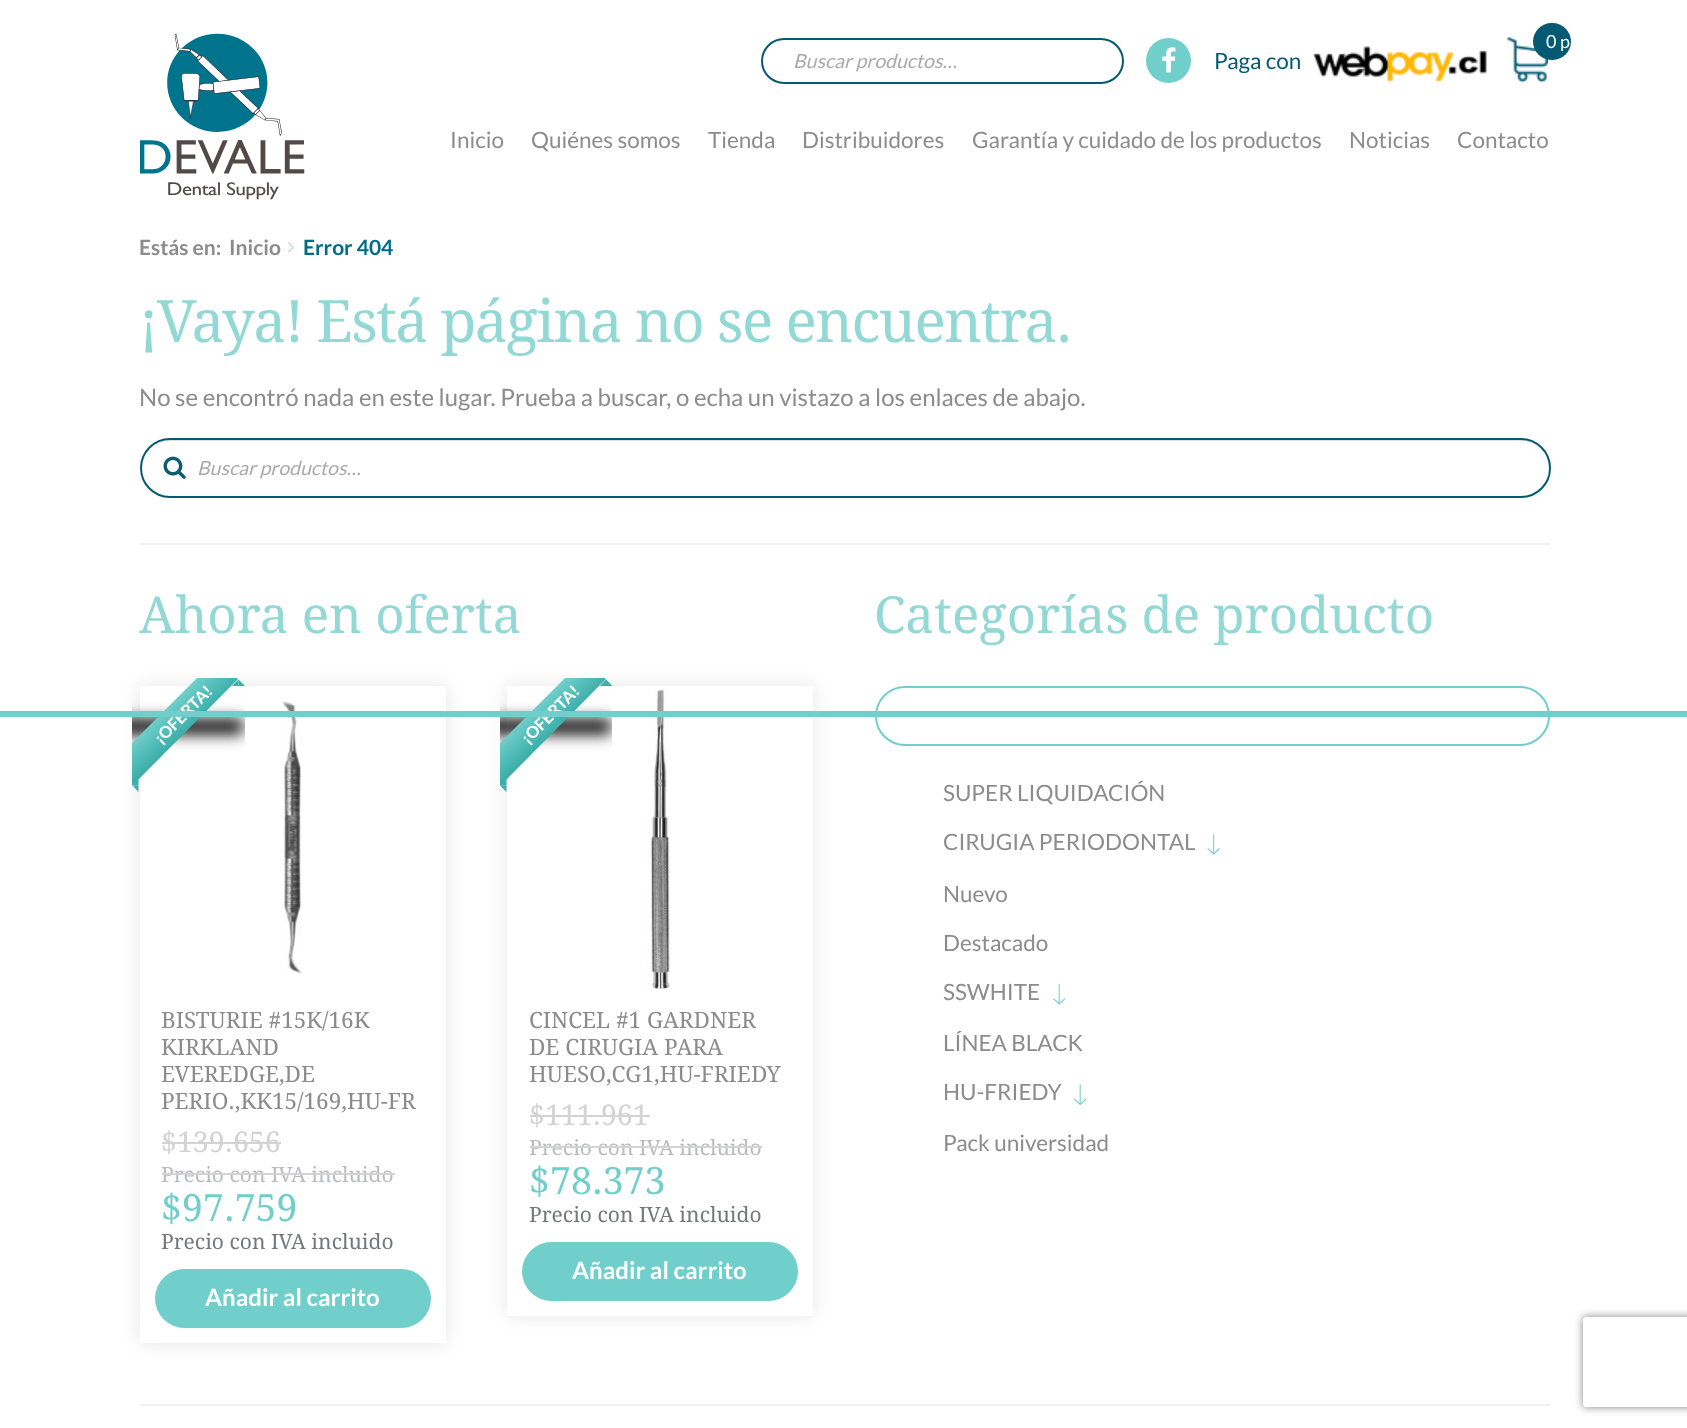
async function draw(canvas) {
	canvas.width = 1687;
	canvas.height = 1428;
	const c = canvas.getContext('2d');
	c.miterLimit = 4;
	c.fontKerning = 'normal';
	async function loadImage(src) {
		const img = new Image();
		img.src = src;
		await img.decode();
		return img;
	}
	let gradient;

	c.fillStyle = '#fff';
	c.fillRect(0, 0, 1687, 1428);
	c.drawImage(await loadImage('img1.png'), 140, 33, 165, 167);
	c.fillStyle = '#dfdfdf';
	c.beginPath();
	c.moveTo(784, 40);
	c.lineTo(1100, 40);
	c.bezierCurveTo(1112, 40, 1122, 50, 1122, 62);
	c.bezierCurveTo(1122, 49, 1112, 39, 1100, 39);
	c.lineTo(784, 39);
	c.bezierCurveTo(772, 39, 762, 49, 762, 62);
	c.bezierCurveTo(762, 50, 772, 40, 784, 40);
	c.closePath();
	c.fill();
	c.beginPath();
	c.roundRect(762, 39, 361, 44, 22);
	c.strokeStyle = '#055a73';
	c.lineWidth = 2;
	c.stroke();
	c.font = 'italic 19.5px Lato';
	c.fillStyle = '#aaa';
	c.fillText('Buscar productos…', 793, 68);
	c.fillStyle = '#70cecb';
	c.beginPath();
	c.arc(1168.5, 60.5, 22.5, 0, 2 * Math.PI);
	c.fill();
	c.drawImage(await loadImage('img2.png'), 1162, 47, 14, 26);
	c.font = '22.5px Lato';
	c.fillStyle = '#055a73';
	c.fillText('Paga con', 1214, 69);
	c.drawImage(await loadImage('img3.png'), 1312, 46, 175, 36);
	c.drawImage(await loadImage('img4.png'), 1507, 37, 41, 46);
	c.beginPath();
	c.roundRect(1533, 23, 38, 37, 18.5);
	c.fill();
	c.font = '18px Lato';
	c.fillStyle = '#fff';
	c.fillText('0 p', 1546, 48);
	c.font = '22.5px Lato';
	c.fillStyle = '#8c8c8c';
	for (const [text, x, y] of [
		['Inicio', 450, 148],
		['Quiénes somos', 531, 148],
		['Tienda', 708, 148],
		['Distribuidores', 802, 148],
		['Garantía y cuidado de los productos', 972, 148],
		['Noticias', 1349, 148],
		['Contacto', 1457, 148],
	]) {
		c.fillText(text, x, y);
	}
	c.font = 'bold 21px Lato';
	c.fillText('Estás en:', 139, 255);
	c.fillText('Inicio', 229, 255);
	c.drawImage(await loadImage('img5.png'), 288, 242, 6, 11);
	c.fillStyle = '#006d86';
	c.fillText('Error 404', 303, 255);
	c.letterSpacing = '-1.5px';
	c.font = '58.5px Droid Serif';
	c.fillStyle = '#92d8d5';
	c.fillText('¡Vaya! Está página no se encuentra.', 139, 342);
	c.letterSpacing = '0px';
	c.font = '24px Lato';
	c.fillStyle = '#8c8c8c';
	c.fillText('No se encontró nada en este lugar. Prueba a buscar, o echa un vistazo a los enlaces de abajo.', 139, 406);
	c.fillStyle = '#dfdfdf';
	c.beginPath();
	c.moveTo(170, 441);
	c.lineTo(1521, 441);
	c.bezierCurveTo(1537, 441, 1550, 454, 1550, 469);
	c.lineTo(1550, 468);
	c.bezierCurveTo(1550, 453, 1537, 440, 1522, 440);
	c.lineTo(170, 440);
	c.bezierCurveTo(154, 440, 141, 453, 141, 468);
	c.lineTo(141, 469);
	c.bezierCurveTo(141, 454, 154, 441, 170, 441);
	c.closePath();
	c.fill();
	c.beginPath();
	c.roundRect(141, 439, 1409, 58, 29);
	c.stroke();
	c.drawImage(await loadImage('img6.png'), 163, 456, 23, 23);
	c.font = 'italic 19.5px Lato';
	c.fillStyle = '#aaa';
	c.fillText('Buscar productos…', 197, 475);
	c.fillStyle = '#f2f2f2';
	c.fillRect(140, 543, 1410, 2);
	c.fillRect(140, 1404, 1410, 2);
	c.font = '51px Droid Serif';
	c.fillStyle = '#92d8d5';
	c.fillText('Ahora en oferta', 139, 633);
	c.save();
	c.beginPath();
	c.moveTo(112, 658);
	c.lineTo(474, 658);
	c.lineTo(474, 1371);
	c.lineTo(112, 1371);
	c.closePath();
	c.moveTo(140, 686);
	c.lineTo(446, 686);
	c.lineTo(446, 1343);
	c.lineTo(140, 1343);
	c.closePath();
	c.clip('evenodd');
	c.fillStyle = '#0000001a';
	c.filter = 'blur(9px)';
	c.beginPath();
	c.rect(140, 686, 306, 657);
	c.fill();
	c.filter = 'none';
	c.restore();
	c.save();
	c.beginPath();
	c.rect(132, 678, 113, 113);
	c.clip();
	c.fillStyle = '#000';
	c.filter = 'blur(7.5px)';
	c.beginPath();
	c.rect(108, 719, 135, 15);
	c.fill();
	c.filter = 'none';
	c.restore();
	c.save();
	c.beginPath();
	c.rect(132, 678, 113, 113);
	c.clip();
	gradient = c.createLinearGradient(164, 711, 185, 733);
	gradient.addColorStop(0, '#70cecb');
	gradient.addColorStop(1, '#3baeaa');
	c.fillStyle = gradient;
	c.beginPath();
	c.moveTo(111, 764);
	c.lineTo(217, 658);
	c.lineTo(238, 679);
	c.lineTo(132, 786);
	c.closePath();
	c.fill();
	c.restore();
	c.fillStyle = '#3baeaa';
	c.beginPath();
	c.moveTo(232, 686);
	c.lineTo(238.5, 679.5);
	c.lineTo(238.5, 686);
	c.closePath();
	c.fill();
	c.beginPath();
	c.moveTo(238.5, 679.5);
	c.lineTo(245, 686);
	c.lineTo(238.5, 686);
	c.closePath();
	c.fill();
	c.font = 'bold 16.5px Lato';
	c.fillStyle = '#fff';
	c.save();
	c.translate(161, 745);
	c.rotate(-45 * Math.PI / 180);
	c.fillText('¡OFERTA!', 0, 0);
	c.restore();
	c.fillStyle = '#3baeaa';
	c.beginPath();
	c.moveTo(132.5, 785.5);
	c.lineTo(138.5, 779);
	c.lineTo(138.5, 785.5);
	c.closePath();
	c.fill();
	c.beginPath();
	c.moveTo(138.5, 792);
	c.lineTo(132.5, 785.5);
	c.lineTo(138.5, 785.5);
	c.closePath();
	c.fill();
	c.drawImage(await loadImage('img7.png'), 282, 701, 20, 273);
	c.font = '22.5px Droid Serif';
	c.fillStyle = '#8c8c8c';
	for (const [text, x, y] of [
		['BISTURIE #15K/16K', 161, 1028],
		['KIRKLAND', 161, 1055],
		['EVEREDGE,DE', 161, 1082],
		['PERIO.,KK15/169,HU-FR', 161, 1109],
	]) {
		c.fillText(text, x, y);
	}
	c.font = '28.5px Droid Serif';
	c.fillStyle = '#d3d3d3';
	c.fillText('$139.656', 161, 1152);
	c.fillRect(162, 1142, 119, 2);
	c.font = '21px Droid Serif';
	c.fillStyle = '#babbbe';
	c.fillText('Precio con IVA incluido', 161, 1182);
	c.fillStyle = '#d3d3d3';
	c.fillRect(162, 1173, 233, 2);
	c.font = '37.5px Droid Serif';
	c.fillStyle = '#70cecb';
	c.fillText('$97.759', 161, 1221);
	c.font = '21px Droid Serif';
	c.fillStyle = '#75777d';
	c.fillText('Precio con IVA incluido', 161, 1249);
	c.fillStyle = '#70cecb';
	c.beginPath();
	c.roundRect(155, 1269, 276, 59, 29.5);
	c.fill();
	c.font = 'bold 24px Lato';
	c.fillStyle = '#fff';
	c.fillText('Añadir al carrito', 205, 1306);
	c.save();
	c.beginPath();
	c.moveTo(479, 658);
	c.lineTo(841, 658);
	c.lineTo(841, 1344);
	c.lineTo(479, 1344);
	c.closePath();
	c.moveTo(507, 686);
	c.lineTo(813, 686);
	c.lineTo(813, 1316);
	c.lineTo(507, 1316);
	c.closePath();
	c.clip('evenodd');
	c.fillStyle = '#0000001a';
	c.filter = 'blur(9px)';
	c.beginPath();
	c.rect(507, 686, 306, 630);
	c.fill();
	c.filter = 'none';
	c.restore();
	c.save();
	c.beginPath();
	c.rect(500, 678, 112, 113);
	c.clip();
	c.fillStyle = '#000';
	c.filter = 'blur(7.5px)';
	c.beginPath();
	c.rect(476, 719, 135, 15);
	c.fill();
	c.filter = 'none';
	c.restore();
	c.save();
	c.beginPath();
	c.rect(500, 678, 112, 113);
	c.clip();
	gradient = c.createLinearGradient(532, 711, 553, 733);
	gradient.addColorStop(0, '#70cecb');
	gradient.addColorStop(1, '#3baeaa');
	c.fillStyle = gradient;
	c.beginPath();
	c.moveTo(479, 764);
	c.lineTo(585, 658);
	c.lineTo(606, 679);
	c.lineTo(500, 786);
	c.closePath();
	c.fill();
	c.restore();
	c.fillStyle = '#3baeaa';
	c.beginPath();
	c.moveTo(600, 686);
	c.lineTo(606, 679.5);
	c.lineTo(606, 686);
	c.closePath();
	c.moveTo(606, 679.5);
	c.lineTo(612.5, 686);
	c.lineTo(606, 686);
	c.closePath();
	c.fill();
	c.font = 'bold 16.5px Lato';
	c.fillStyle = '#fff';
	c.save();
	c.translate(528, 745);
	c.rotate(-45 * Math.PI / 180);
	c.fillText('¡OFERTA!', 0, 0);
	c.restore();
	c.fillStyle = '#3baeaa';
	c.beginPath();
	c.moveTo(500, 785.5);
	c.lineTo(506.5, 779);
	c.lineTo(506.5, 785.5);
	c.closePath();
	c.fill();
	c.beginPath();
	c.moveTo(506.5, 792);
	c.lineTo(500, 785.5);
	c.lineTo(506.5, 785.5);
	c.closePath();
	c.fill();
	c.drawImage(await loadImage('img8.png'), 646, 689, 24, 300);
	c.font = '22.5px Droid Serif';
	c.fillStyle = '#8c8c8c';
	for (const [text, x, y] of [
		['CINCEL #1 GARDNER', 529, 1028],
		['DE CIRUGIA PARA', 529, 1055],
		['HUESO,CG1,HU-FRIEDY', 529, 1082],
	]) {
		c.fillText(text, x, y);
	}
	c.font = '28.5px Droid Serif';
	c.fillStyle = '#d3d3d3';
	c.fillText('$111.961', 529, 1125);
	c.fillRect(530, 1115, 120, 2);
	c.font = '21px Droid Serif';
	c.fillStyle = '#babbbe';
	c.fillText('Precio con IVA incluido', 529, 1155);
	c.fillStyle = '#d3d3d3';
	c.fillRect(530, 1146, 232, 2);
	c.font = '37.5px Droid Serif';
	c.fillStyle = '#70cecb';
	c.fillText('$78.373', 529, 1194);
	c.font = '21px Droid Serif';
	c.fillStyle = '#75777d';
	c.fillText('Precio con IVA incluido', 529, 1222);
	c.fillStyle = '#70cecb';
	c.beginPath();
	c.roundRect(522, 1242, 276, 59, 29.5);
	c.fill();
	c.font = 'bold 24px Lato';
	c.fillStyle = '#fff';
	c.fillText('Añadir al carrito', 572, 1279);
	c.font = '51px Droid Serif';
	c.fillStyle = '#92d8d5';
	c.fillText('Categorías de producto', 874, 633);
	c.beginPath();
	c.roundRect(876, 687, 673, 58, 29);
	c.strokeStyle = '#70cecb';
	c.stroke();
	c.font = '22.5px Lato';
	c.fillStyle = '#8c8c8c';
	c.fillText('SUPER LIQUIDACIÓN', 943, 801);
	c.fillText('CIRUGIA PERIODONTAL', 943, 850);
	c.drawImage(await loadImage('img9.png'), 1207, 833, 13, 22);
	for (const [text, x, y] of [
		['Nuevo', 943, 902],
		['Destacado', 943, 951],
		['SSWHITE', 943, 1000],
	]) {
		c.fillText(text, x, y);
	}
	c.drawImage(await loadImage('img10.png'), 1053, 983, 13, 22);
	c.fillText('LÍNEA BLACK', 943, 1051);
	c.fillText('HU-FRIEDY', 943, 1100);
	c.drawImage(await loadImage('img11.png'), 1074, 1084, 13, 21);
	c.fillText('Pack universidad', 943, 1151);
	c.fillStyle = '#70cecb';
	c.fillRect(0, 711, 1687, 6);
	c.save();
	c.beginPath();
	c.moveTo(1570, 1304);
	c.lineTo(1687, 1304);
	c.lineTo(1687, 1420);
	c.lineTo(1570, 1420);
	c.closePath();
	c.moveTo(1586, 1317);
	c.lineTo(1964, 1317);
	c.bezierCurveTo(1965.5, 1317, 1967, 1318.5, 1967, 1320);
	c.lineTo(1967, 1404);
	c.bezierCurveTo(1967, 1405.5, 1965.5, 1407, 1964, 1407);
	c.lineTo(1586, 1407);
	c.bezierCurveTo(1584.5, 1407, 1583, 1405.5, 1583, 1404);
	c.lineTo(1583, 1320);
	c.bezierCurveTo(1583, 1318.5, 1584.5, 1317, 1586, 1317);
	c.closePath();
	c.clip('evenodd');
	c.fillStyle = '#808080';
	c.filter = 'blur(4px)';
	c.beginPath();
	c.roundRect(1583, 1317, 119, 90, 3);
	c.fill();
	c.filter = 'none';
	c.restore();
}

draw(document.querySelector('canvas'));
